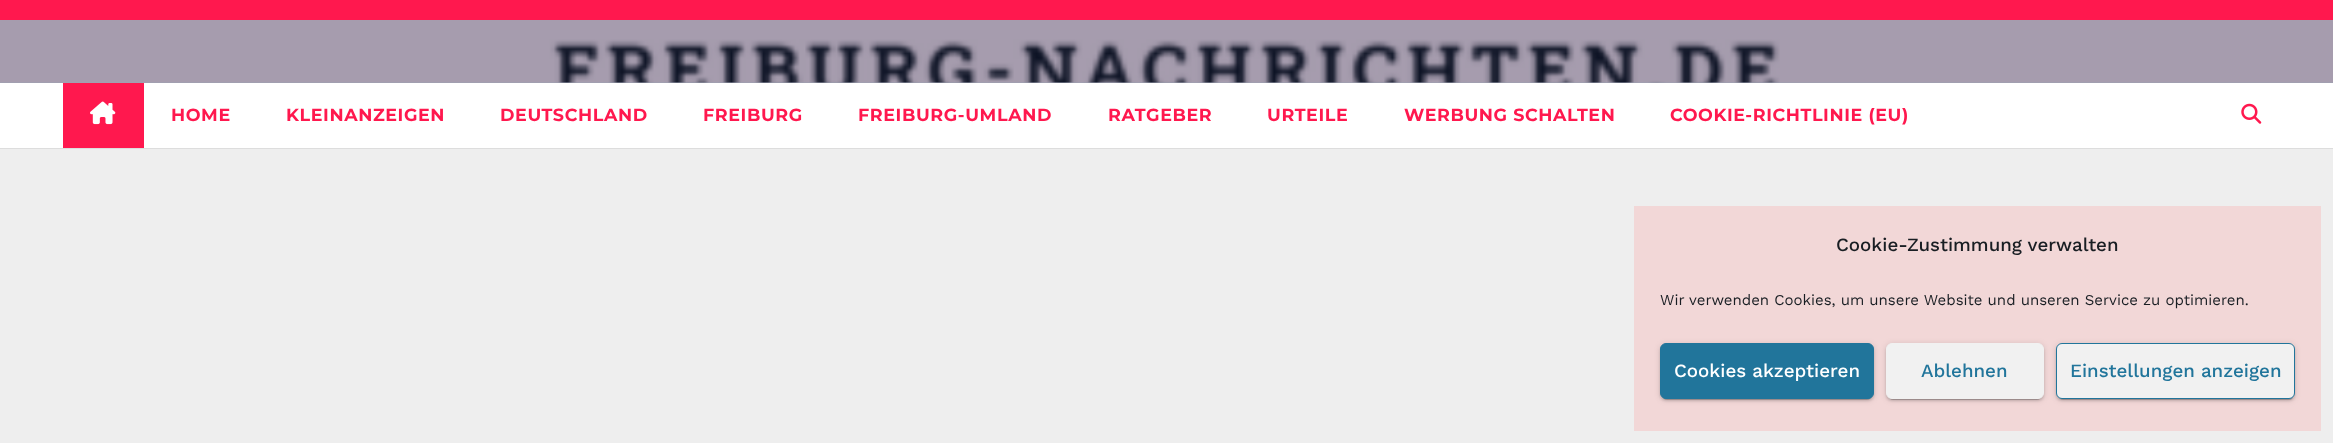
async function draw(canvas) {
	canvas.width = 2333;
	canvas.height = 443;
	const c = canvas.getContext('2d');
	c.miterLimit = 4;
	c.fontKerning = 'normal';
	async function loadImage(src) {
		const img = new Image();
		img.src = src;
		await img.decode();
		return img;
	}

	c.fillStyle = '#eee';
	c.fillRect(0, 0, 2333, 443);
	c.fillStyle = '#9ca2b3';
	c.fillRect(0, 82, 2333, 1);
	c.fillStyle = '#ff184e';
	c.fillRect(0, 0, 2333, 20);
	c.drawImage(await loadImage('img1.png'), 0, 20, 2333, 63);
	c.fillStyle = '#ddd';
	c.beginPath();
	c.moveTo(0, 148);
	c.lineTo(0, 149);
	c.lineTo(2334, 149);
	c.lineTo(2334, 84);
	c.lineTo(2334, 148);
	c.closePath();
	c.fill();
	c.fillStyle = '#fff';
	c.fillRect(0, 83, 2333, 65);
	c.fillStyle = '#ff184e';
	c.fillRect(63, 83, 81, 65);
	c.drawImage(await loadImage('img2.png'), 90, 101, 26, 24);
	c.letterSpacing = '0.6px';
	c.font = 'bold 17.5px Montserrat';
	for (const [text, x, y] of [
		['HOME', 171, 121],
		['KLEINANZEIGEN', 286, 121],
		['DEUTSCHLAND', 500, 121],
		['FREIBURG', 703, 121],
		['FREIBURG-UMLAND', 858, 121],
		['RATGEBER', 1108, 121],
		['URTEILE', 1267, 121],
		['WERBUNG SCHALTEN', 1404, 121],
		['COOKIE-RICHTLINIE (EU)', 1670, 121],
	]) {
		c.fillText(text, x, y);
	}
	c.drawImage(await loadImage('img3.png'), 2241, 103, 21, 21);
	c.fillStyle = '#f2d7d7';
	c.fillRect(1634, 206, 687, 225);
	c.letterSpacing = '0px';
	c.font = '500 18.75px Work Sans';
	c.fillStyle = '#191e23';
	c.fillText('Cookie-Zustimmung verwalten', 1836, 251);
	c.font = '15px Work Sans';
	c.fillText('Wir verwenden Cookies, um unsere Website und unseren Service zu optimieren.', 1660, 305);
	c.fillStyle = '#0000001f';
	c.filter = 'blur(3px)';
	c.beginPath();
	c.roundRect(1660, 344, 214, 56, 6);
	c.fill();
	c.filter = 'none';
	c.fillStyle = '#00000033';
	c.filter = 'blur(0.5px)';
	c.beginPath();
	c.roundRect(1663, 349, 208, 51, 4);
	c.fill();
	c.filter = 'none';
	c.fillStyle = '#00000024';
	c.filter = 'blur(1px)';
	c.beginPath();
	c.roundRect(1660, 345, 214, 56, 6);
	c.fill();
	c.filter = 'none';
	c.fillStyle = '#21759b';
	c.beginPath();
	c.roundRect(1660.5, 343.5, 213, 55, 5.5);
	c.fill();
	c.strokeStyle = '#21759b';
	c.stroke();
	c.font = '500 18.75px Work Sans';
	c.fillStyle = '#fff';
	c.fillText('Cookies akzeptieren', 1674, 377);
	c.fillStyle = '#0000001f';
	c.filter = 'blur(3px)';
	c.beginPath();
	c.roundRect(1886, 344, 158, 56, 6);
	c.fill();
	c.filter = 'none';
	c.fillStyle = '#00000033';
	c.filter = 'blur(0.5px)';
	c.beginPath();
	c.roundRect(1889, 349, 152, 51, 4);
	c.fill();
	c.filter = 'none';
	c.fillStyle = '#00000024';
	c.filter = 'blur(1px)';
	c.beginPath();
	c.roundRect(1886, 345, 158, 56, 6);
	c.fill();
	c.filter = 'none';
	c.fillStyle = '#f1f1f1';
	c.beginPath();
	c.roundRect(1886.5, 343.5, 157, 55, 5.5);
	c.fill();
	c.strokeStyle = '#f1f1f1';
	c.stroke();
	c.fillStyle = '#21759b';
	c.fillText('Ablehnen', 1921, 377);
	c.fillStyle = '#0000001f';
	c.filter = 'blur(3px)';
	c.beginPath();
	c.roundRect(2056, 344, 239, 56, 6);
	c.fill();
	c.filter = 'none';
	c.fillStyle = '#00000033';
	c.filter = 'blur(0.5px)';
	c.beginPath();
	c.roundRect(2059, 349, 234, 51, 4);
	c.fill();
	c.filter = 'none';
	c.fillStyle = '#00000024';
	c.filter = 'blur(1px)';
	c.beginPath();
	c.roundRect(2056, 345, 239, 56, 6);
	c.fill();
	c.filter = 'none';
	c.fillStyle = '#f1f1f1';
	c.beginPath();
	c.roundRect(2056.5, 343.5, 238, 55, 5.5);
	c.fill();
	c.strokeStyle = '#21759b';
	c.stroke();
	c.fillStyle = '#21759b';
	c.fillText('Einstellungen anzeigen', 2070, 377);
}

draw(document.querySelector('canvas'));
